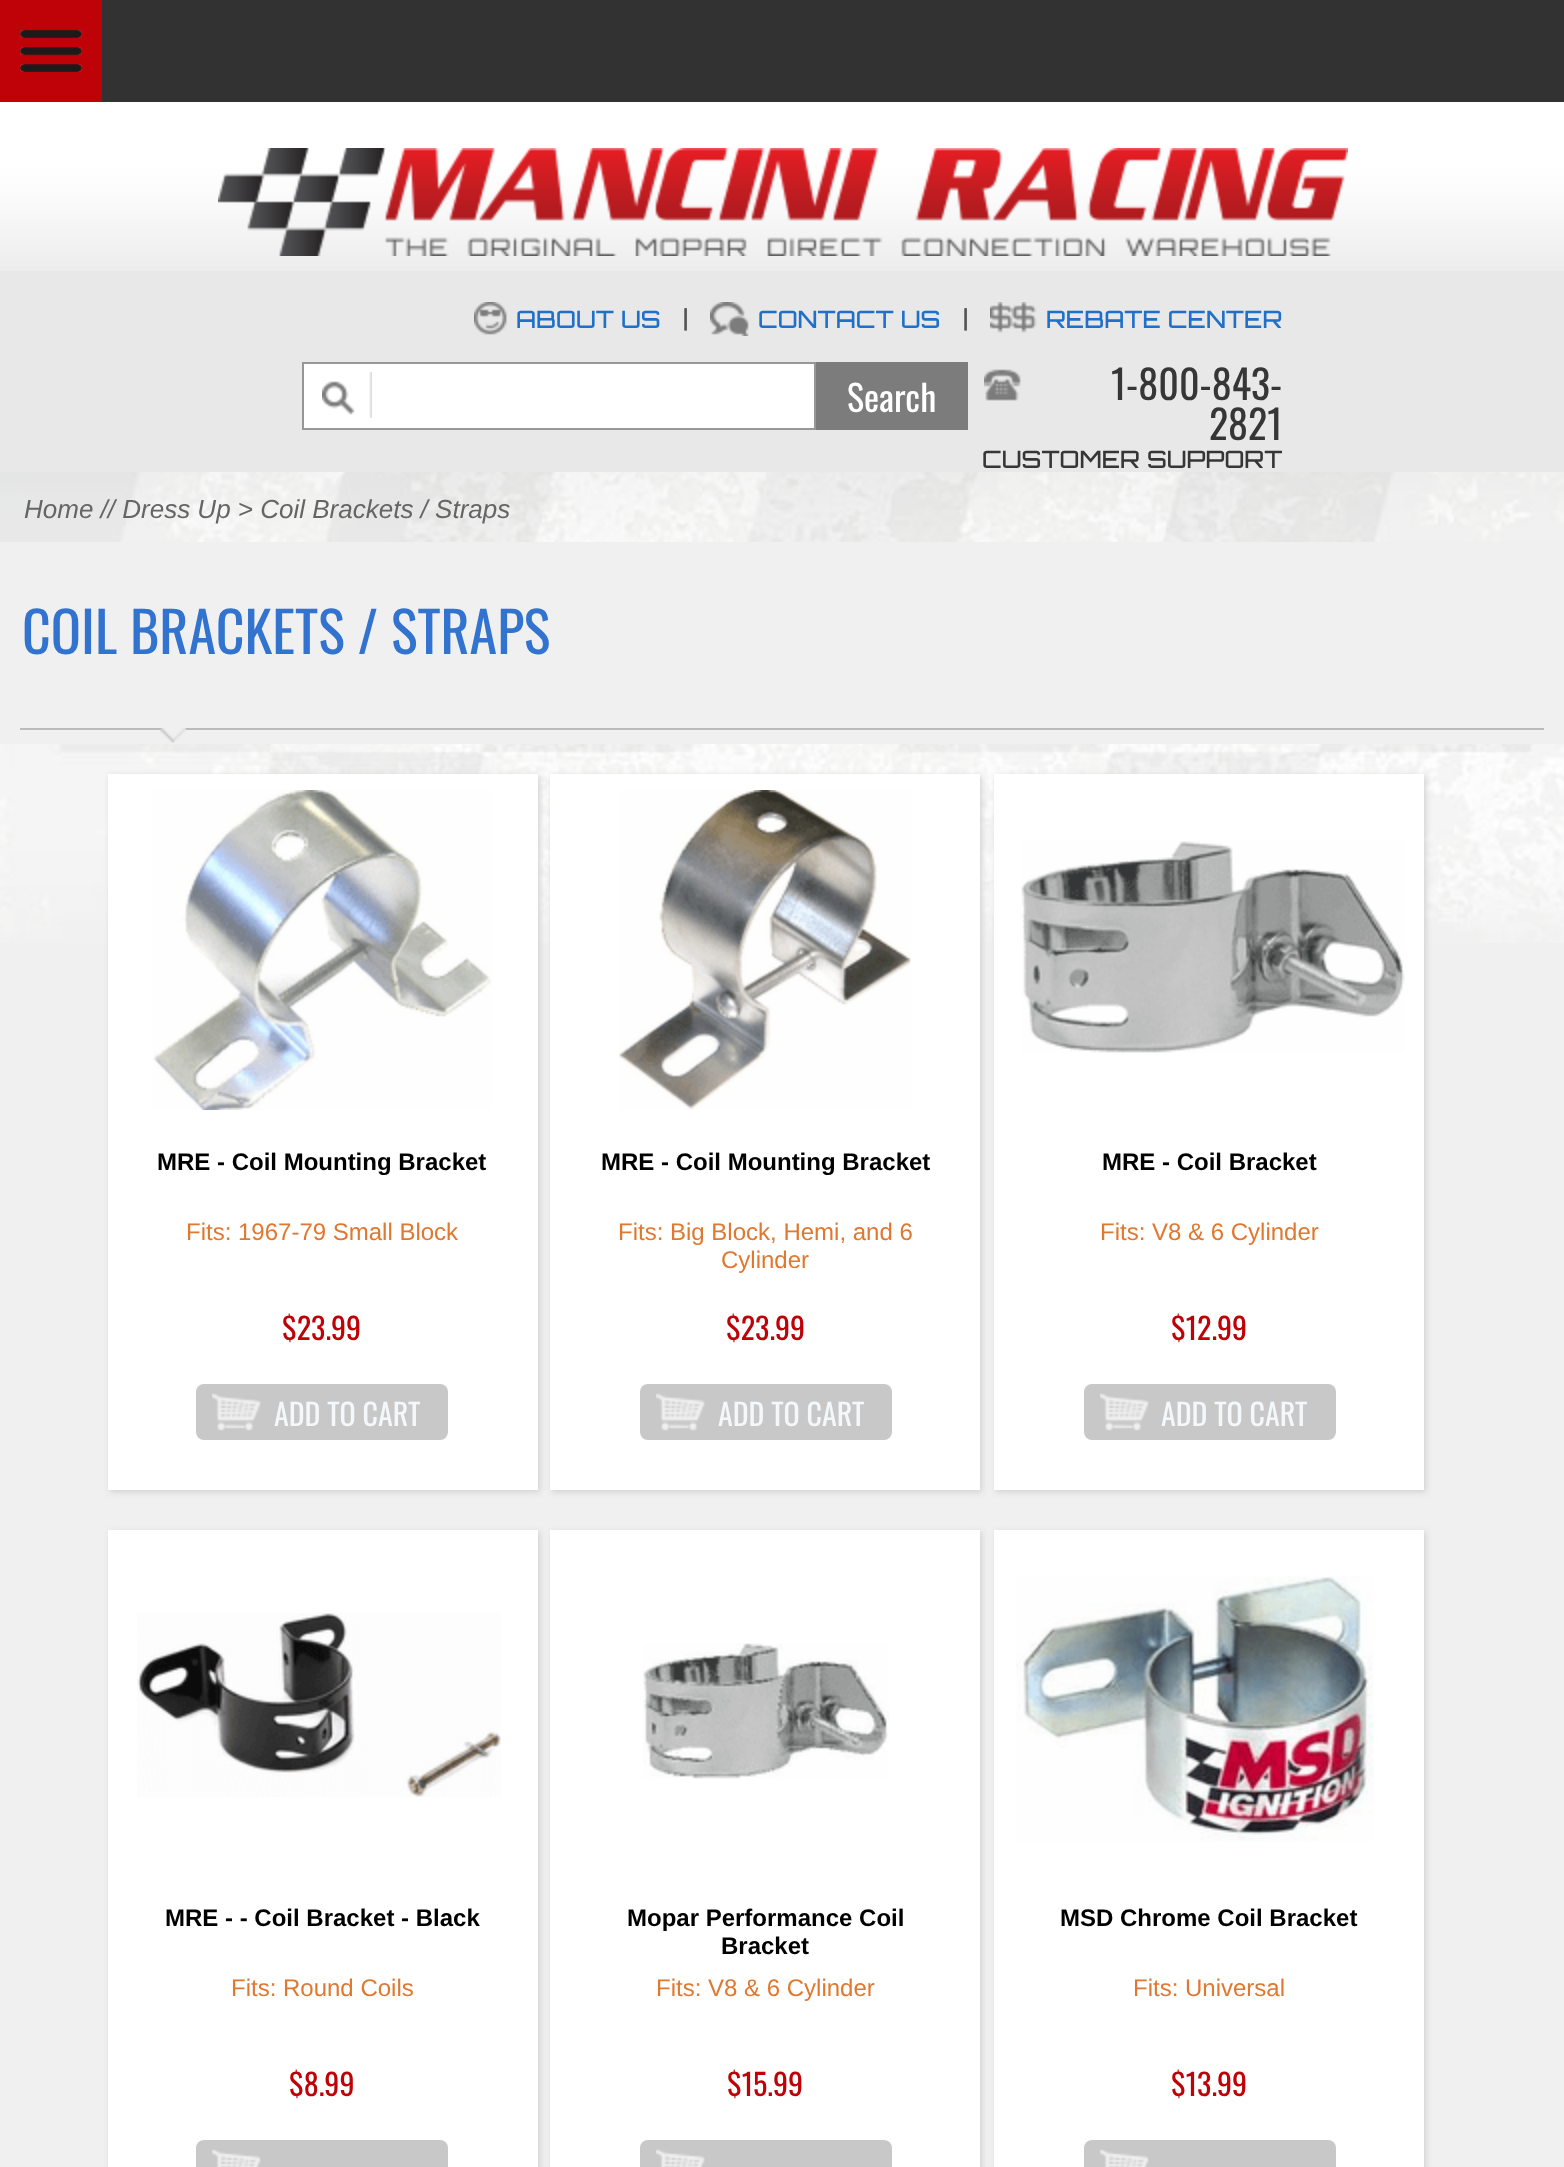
async function draw(canvas) {
	canvas.width = 1564;
	canvas.height = 2167;
	const c = canvas.getContext('2d');
	c.miterLimit = 4;
	c.fontKerning = 'normal';
	async function loadImage(src) {
		const img = new Image();
		img.src = src;
		await img.decode();
		return img;
	}

	c.fillStyle = '#eff0ef';
	c.fillRect(0, 0, 1564, 2167);
	c.drawImage(await loadImage('img1.png'), 0, 472, 1564, 471);
	c.fillStyle = '#323232';
	c.fillRect(102, 0, 1462, 102);
	c.fillStyle = '#be0207';
	c.fillRect(0, 0, 102, 102);
	c.drawImage(await loadImage('img2.png'), 20, 30, 62, 42);
	c.fillStyle = '#e8e8e8';
	c.fillRect(0, 271, 1564, 201);
	c.drawImage(await loadImage('img3.png'), 0, 102, 1564, 169);
	c.drawImage(await loadImage('img4.png'), 218, 148, 1130, 108);
	c.drawImage(await loadImage('img5.png'), 474, 302, 33, 33);
	c.font = '500 24px Orbitron';
	c.fillStyle = '#2070ca';
	c.fillText('ABOUT US', 516, 328);
	c.fillStyle = '#535353';
	c.fillText('|', 683, 328);
	c.drawImage(await loadImage('img6.png'), 710, 302, 39, 34);
	c.fillStyle = '#2070ca';
	c.fillText('CONTACT US', 758, 328);
	c.fillStyle = '#535353';
	c.fillText('|', 963, 328);
	c.drawImage(await loadImage('img7.png'), 990, 302, 47, 31);
	c.fillStyle = '#2070ca';
	c.fillText('REBATE CENTER', 1046, 328);
	c.fillStyle = '#fff';
	c.fillRect(304, 364, 510, 64);
	c.drawImage(await loadImage('img8.png'), 322, 372, 50, 46);
	c.strokeStyle = '#989797';
	c.lineWidth = 2;
	c.strokeRect(303, 363, 512, 66);
	c.fillStyle = '#7c7c7c';
	c.fillRect(816, 362, 152, 68);
	c.font = '36px Oswald';
	c.fillStyle = '#fff';
	c.fillText('Search', 847, 412);
	c.drawImage(await loadImage('img9.png'), 984, 369, 37, 32);
	c.font = '40px Oswald';
	c.fillStyle = '#373636';
	c.fillText('1-800-843-', 1111, 400);
	c.fillText('2821', 1209, 440);
	c.font = '500 24px Orbitron';
	c.fillText('CUSTOMER SUPPORT', 982, 468);
	c.font = 'italic 26px Liberation Sans';
	c.fillStyle = '#656565';
	c.fillText('Home // Dress Up > Coil Brackets / Straps', 24, 518);
	c.fillStyle = '#eff0ef';
	c.fillRect(0, 542, 1564, 202);
	c.font = '56px Oswald';
	c.fillStyle = '#3273d0';
	c.fillText('COIL BRACKETS / STRAPS', 22, 654);
	c.fillStyle = '#bbb';
	c.fillRect(20, 728, 1524, 2);
	c.drawImage(await loadImage('img10.png'), 160, 728, 26, 15);
	c.fillStyle = '#d0d1d0';
	c.filter = 'blur(3px)';
	c.beginPath();
	c.rect(110, 776, 430, 716);
	c.fill();
	c.filter = 'none';
	c.fillStyle = '#fff';
	c.fillRect(108, 774, 430, 716);
	c.drawImage(await loadImage('img11.png'), 153, 790, 339, 320);
	c.font = 'bold 24px Liberation Sans';
	c.fillStyle = '#000';
	c.fillText('MRE - Coil Mounting Bracket', 157, 1170);
	c.font = '24px Liberation Sans';
	c.fillStyle = '#e0782f';
	c.fillText('Fits: 1967-79 Small Block', 186, 1240);
	c.font = '30px Oswald';
	c.fillStyle = '#be0207';
	c.fillText('$23.99', 282, 1340);
	c.fillStyle = '#c8c8c8';
	c.beginPath();
	c.roundRect(196, 1384, 252, 56, 8);
	c.fill();
	c.drawImage(await loadImage('img12.png'), 212, 1393, 49, 38);
	c.fillStyle = '#f5f8fa';
	c.fillText('ADD TO CART', 274, 1426);
	c.fillStyle = '#d0d1d0';
	c.filter = 'blur(3px)';
	c.beginPath();
	c.rect(552, 776, 430, 716);
	c.fill();
	c.filter = 'none';
	c.fillStyle = '#fff';
	c.fillRect(550, 774, 430, 716);
	c.drawImage(await loadImage('img13.png'), 619, 790, 292, 320);
	c.font = 'bold 24px Liberation Sans';
	c.fillStyle = '#000';
	c.fillText('MRE - Coil Mounting Bracket', 601, 1170);
	c.font = '24px Liberation Sans';
	c.fillStyle = '#e0782f';
	c.fillText('Fits: Big Block, Hemi, and 6', 618, 1240);
	c.fillText('Cylinder', 721, 1268);
	c.font = '30px Oswald';
	c.fillStyle = '#be0207';
	c.fillText('$23.99', 726, 1340);
	c.fillStyle = '#c8c8c8';
	c.beginPath();
	c.roundRect(640, 1384, 252, 56, 8);
	c.fill();
	c.drawImage(await loadImage('img12.png'), 656, 1393, 49, 38);
	c.fillStyle = '#f5f8fa';
	c.fillText('ADD TO CART', 718, 1426);
	c.fillStyle = '#d0d1d0';
	c.filter = 'blur(3px)';
	c.beginPath();
	c.rect(996, 776, 430, 716);
	c.fill();
	c.filter = 'none';
	c.fillStyle = '#fff';
	c.fillRect(994, 774, 430, 716);
	c.drawImage(await loadImage('img14.png'), 1021, 841, 384, 212);
	c.font = 'bold 24px Liberation Sans';
	c.fillStyle = '#000';
	c.fillText('MRE - Coil Bracket', 1102, 1170);
	c.font = '24px Liberation Sans';
	c.fillStyle = '#e0782f';
	c.fillText('Fits: V8 & 6 Cylinder', 1100, 1240);
	c.font = '30px Oswald';
	c.fillStyle = '#be0207';
	c.fillText('$12.99', 1171, 1340);
	c.fillStyle = '#c8c8c8';
	c.beginPath();
	c.roundRect(1084, 1384, 252, 56, 8);
	c.fill();
	c.drawImage(await loadImage('img12.png'), 1100, 1393, 49, 38);
	c.fillStyle = '#f5f8fa';
	c.fillText('ADD TO CART', 1161, 1426);
	c.fillStyle = '#d0d1d0';
	c.filter = 'blur(3px)';
	c.beginPath();
	c.rect(110, 1532, 430, 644);
	c.fill();
	c.filter = 'none';
	c.fillStyle = '#fff';
	c.fillRect(108, 1530, 430, 637);
	c.drawImage(await loadImage('img15.png'), 137, 1613, 364, 184);
	c.font = 'bold 24px Liberation Sans';
	c.fillStyle = '#000';
	c.fillText('MRE - - Coil Bracket - Black', 165, 1926);
	c.font = '24px Liberation Sans';
	c.fillStyle = '#e0782f';
	c.fillText('Fits: Round Coils', 231, 1996);
	c.font = '30px Oswald';
	c.fillStyle = '#be0207';
	c.fillText('$8.99', 289, 2096);
	c.fillStyle = '#c8c8c8';
	c.beginPath();
	c.roundRect(196, 2140, 252, 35, 8);
	c.fill();
	c.drawImage(await loadImage('img16.png'), 212, 2149, 49, 18);
	c.fillStyle = '#d0d1d0';
	c.filter = 'blur(3px)';
	c.beginPath();
	c.rect(552, 1532, 430, 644);
	c.fill();
	c.filter = 'none';
	c.fillStyle = '#fff';
	c.fillRect(550, 1530, 430, 637);
	c.drawImage(await loadImage('img17.png'), 643, 1643, 246, 136);
	c.font = 'bold 24px Liberation Sans';
	c.fillStyle = '#000';
	c.fillText('Mopar Performance Coil', 627, 1926);
	c.fillText('Bracket', 721, 1954);
	c.font = '24px Liberation Sans';
	c.fillStyle = '#e0782f';
	c.fillText('Fits: V8 & 6 Cylinder', 656, 1996);
	c.font = '30px Oswald';
	c.fillStyle = '#be0207';
	c.fillText('$15.99', 727, 2096);
	c.fillStyle = '#c8c8c8';
	c.beginPath();
	c.roundRect(640, 2140, 252, 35, 8);
	c.fill();
	c.drawImage(await loadImage('img16.png'), 656, 2149, 49, 18);
	c.fillStyle = '#d0d1d0';
	c.filter = 'blur(3px)';
	c.beginPath();
	c.rect(996, 1532, 430, 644);
	c.fill();
	c.filter = 'none';
	c.fillStyle = '#fff';
	c.fillRect(994, 1530, 430, 637);
	c.drawImage(await loadImage('img18.png'), 1016, 1576, 358, 266);
	c.font = 'bold 24px Liberation Sans';
	c.fillStyle = '#000';
	c.fillText('MSD Chrome Coil Bracket', 1060, 1926);
	c.font = '24px Liberation Sans';
	c.fillStyle = '#e0782f';
	c.fillText('Fits: Universal', 1133, 1996);
	c.font = '30px Oswald';
	c.fillStyle = '#be0207';
	c.fillText('$13.99', 1171, 2096);
	c.fillStyle = '#c8c8c8';
	c.beginPath();
	c.roundRect(1084, 2140, 252, 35, 8);
	c.fill();
	c.drawImage(await loadImage('img16.png'), 1100, 2149, 49, 18);
}

draw(document.querySelector('canvas'));
